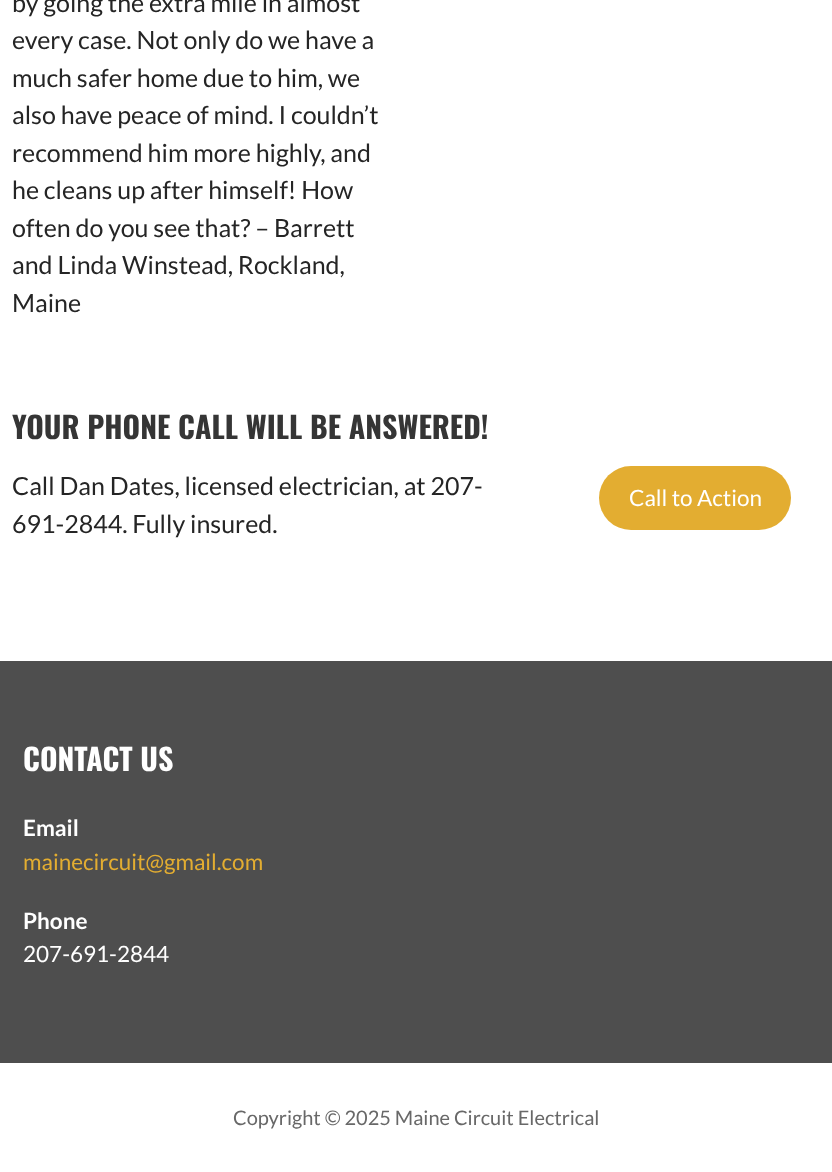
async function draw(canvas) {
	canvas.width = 832;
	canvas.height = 1172;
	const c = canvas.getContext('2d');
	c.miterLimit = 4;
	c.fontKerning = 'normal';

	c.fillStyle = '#fff';
	c.fillRect(0, 0, 832, 1172);
	c.font = '25px Lato';
	c.fillStyle = '#252525';
	for (const [text, x, y] of [
		['by going the extra mile in almost', 12, 12],
		['every case. Not only do we have a', 12, 49],
		['much safer home due to him, we', 12, 87],
		['also have peace of mind. I couldn’t', 12, 124],
		['recommend him more highly, and', 12, 162],
		['he cleans up after himself! How', 12, 199],
		['often do you see that? – Barrett', 12, 237],
		['and Linda Winstead, Rockland,', 12, 274],
		['Maine', 12, 312],
	]) {
		c.fillText(text, x, y);
	}
	c.font = 'bold 30px Oswald';
	c.fillStyle = '#353535';
	c.fillText('YOUR PHONE CALL WILL BE ANSWERED!', 12, 439);
	c.font = '25px Lato';
	c.fillStyle = '#252525';
	c.fillText('Call Dan Dates, licensed electrician, at 207-', 12, 495);
	c.fillText('691-2844. Fully insured.', 12, 533);
	c.fillStyle = '#e3ad31';
	c.beginPath();
	c.roundRect(599, 466, 192, 64, 32);
	c.fill();
	c.font = '22.5px Lato';
	c.fillStyle = '#fff';
	c.fillText('Call to Action', 629, 506);
	c.fillStyle = '#4e4e4e';
	c.fillRect(0, 661, 832, 402);
	c.font = 'bold 30px Oswald';
	c.fillStyle = '#fff';
	c.fillText('CONTACT US', 23, 771);
	c.font = 'bold 22.5px Lato';
	c.fillText('Email', 23, 836);
	c.font = '22.5px Lato';
	c.fillStyle = '#e3ad31';
	c.fillText('mainecircuit@gmail.com', 23, 870);
	c.font = 'bold 22.5px Lato';
	c.fillStyle = '#fff';
	c.fillText('Phone', 23, 929);
	c.font = '22.5px Lato';
	c.fillText('207-691-2844', 23, 962);
	c.font = '20px Lato';
	c.fillStyle = '#686868';
	c.fillText('Copyright © 2025 Maine Circuit Electrical', 233, 1125);
}

draw(document.querySelector('canvas'));
